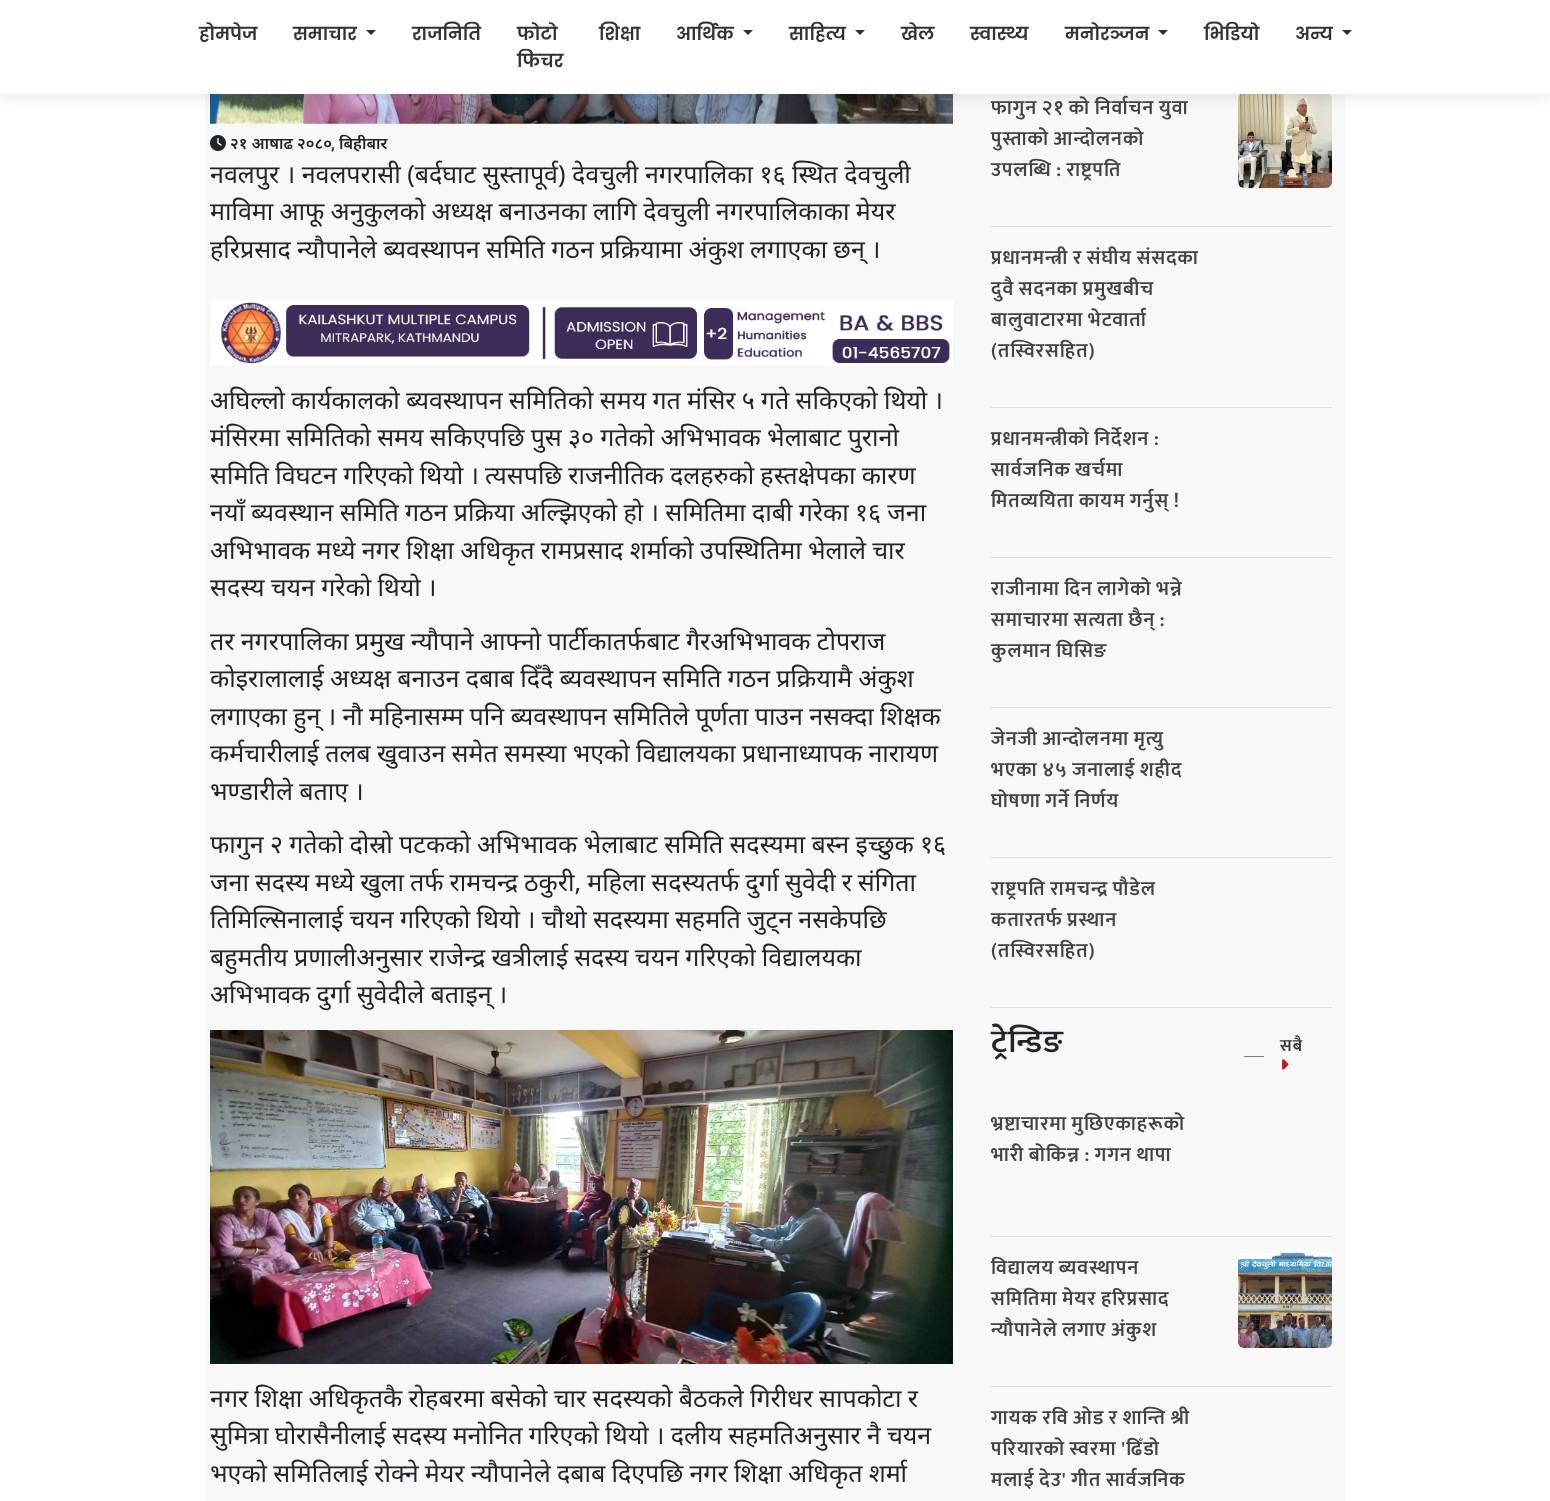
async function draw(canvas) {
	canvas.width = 1550;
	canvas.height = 1501;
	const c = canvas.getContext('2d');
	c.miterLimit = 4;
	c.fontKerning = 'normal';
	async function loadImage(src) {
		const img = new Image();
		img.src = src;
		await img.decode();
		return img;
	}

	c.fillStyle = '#fff';
	c.fillRect(0, 0, 1550, 1501);
	c.fillStyle = '#f8f8f8';
	c.fillRect(205, 94, 1140, 1407);
	c.drawImage(await loadImage('img1.png'), 210, 94, 743, 30);
	c.drawImage(await loadImage('img5.png'), 1238, 94, 94, 94);
	c.fillStyle = '#00000014';
	c.filter = 'blur(7.5px)';
	c.beginPath();
	c.rect(0, 5, 1550, 94);
	c.fill();
	c.filter = 'none';
	c.fillStyle = '#fff';
	c.fillRect(0, 0, 1550, 94);
	c.font = '600 18px Poppins';
	c.fillStyle = '#333';
	c.fillText('होमपेज', 199, 40);
	c.fillText('समाचार', 293, 40);
	c.fillStyle = '#313030';
	c.beginPath();
	c.moveTo(366, 30);
	c.lineTo(376, 30);
	c.lineTo(371, 35);
	c.closePath();
	c.fill();
	c.fillStyle = '#333';
	for (const [text, x, y] of [
		['राजनिति', 412, 40],
		['फाेटाे', 517, 40],
		['फिचर', 517, 67],
		['शिक्षा', 599, 40],
		['आर्थिक', 676, 40],
	]) {
		c.fillText(text, x, y);
	}
	c.fillStyle = '#313030';
	c.beginPath();
	c.moveTo(743, 30);
	c.lineTo(753, 30);
	c.lineTo(748, 35);
	c.closePath();
	c.fill();
	c.fillStyle = '#333';
	c.fillText('साहित्य', 789, 40);
	c.fillStyle = '#313030';
	c.beginPath();
	c.moveTo(855, 30);
	c.lineTo(865, 30);
	c.lineTo(860, 35);
	c.closePath();
	c.fill();
	c.fillStyle = '#333';
	for (const [text, x, y] of [
		['खेल', 901, 40],
		['स्वास्थ्य', 970, 40],
		['मनोरञ्जन', 1065, 40],
	]) {
		c.fillText(text, x, y);
	}
	c.fillStyle = '#313030';
	c.beginPath();
	c.moveTo(1158, 30);
	c.lineTo(1168, 30);
	c.lineTo(1163, 35);
	c.closePath();
	c.fill();
	c.fillStyle = '#333';
	c.fillText('भिडियो', 1204, 40);
	c.fillText('अन्य', 1295, 40);
	c.fillStyle = '#313030';
	c.beginPath();
	c.moveTo(1342, 30);
	c.lineTo(1352, 30);
	c.lineTo(1347, 35);
	c.closePath();
	c.fill();
	c.drawImage(await loadImage('img2.png'), 210, 135, 16, 16);
	c.font = '600 16px Noto Sans';
	c.fillStyle = '#212529';
	c.fillText('२१ आषाढ', 230, 149);
	c.fillText('२०८०', 297, 149);
	c.font = '600 16px Roboto';
	c.fillText(',', 331, 149);
	c.font = '600 16px Noto Sans';
	c.fillText('बिहीबार', 339, 149);
	c.font = '25px Noto Sans';
	c.fillText('नवलपुर । नवलपरासी (बर्दघाट सुस्तापूर्व) देवचुली नगरपालिका १६ स्थित देवचुली', 210, 183);
	c.wordSpacing = '-0.25px';
	c.fillText('माविमा आफू अनुकुलको अध्यक्ष बनाउनका लागि देवचुली नगरपालिकाका मेयर', 210, 220);
	c.fillText('हरिप्रसाद न्यौपानेले ब्यवस्थापन समिति गठन प्रक्रियामा अंकुश लगाएका छन् ।', 210, 258);
	c.drawImage(await loadImage('img3.png'), 210, 300, 743, 66);
	for (const [text, x, y] of [
		['अघिल्लो कार्यकालको ब्यवस्थापन समितिको समय गत मंसिर ५ गते सकिएको थियो ।', 210, 409],
		['मंसिरमा समितिको समय सकिएपछि पुस ३० गतेको अभिभावक भेलाबाट पुरानो', 210, 446],
		['समिति विघटन गरिएको थियो । त्यसपछि राजनीतिक दलहरुको हस्तक्षेपका कारण', 210, 484],
		['नयाँ ब्यवस्थान समिति गठन प्रक्रिया अल्झिएको हो । समितिमा दाबी गरेका १६ जना', 210, 521],
		['अभिभावक मध्ये नगर शिक्षा अधिकृत रामप्रसाद शर्माको उपस्थितिमा भेलाले चार', 210, 559],
		['सदस्य चयन गरेको थियो ।', 210, 596],
		['तर नगरपालिका प्रमुख न्यौपाने आफ्नो पार्टीकातर्फबाट गैरअभिभावक टोपराज', 210, 650],
		['कोइरालालाई अध्यक्ष बनाउन दबाब दिँदै ब्यवस्थापन समिति गठन प्रक्रियामै अंकुश', 210, 687],
		['लगाएका हुन् । नौ महिनासम्म पनि ब्यवस्थापन समितिले पूर्णता पाउन नसक्दा शिक्षक', 210, 725],
		['कर्मचारीलाई तलब खुवाउन समेत समस्या भएको विद्यालयका प्रधानाध्यापक नारायण', 210, 762],
		['भण्डारीले बताए ।', 210, 800],
		['फागुन २ गतेको दोस्रो पटकको अभिभावक भेलाबाट समिति सदस्यमा बस्न इच्छुक १६', 210, 853],
	]) {
		c.fillText(text, x, y);
	}
	c.wordSpacing = '-0.5px';
	c.fillText('जना सदस्य मध्ये खुला तर्फ रामचन्द्र ठकुरी, महिला सदस्यतर्फ दुर्गा सुवेदी र संगिता', 210, 891);
	c.wordSpacing = '-0.25px';
	for (const [text, x, y] of [
		['तिमिल्सिनालाई चयन गरिएको थियो । चौथो सदस्यमा सहमति जुट्न नसकेपछि', 210, 928],
		['बहुमतीय प्रणालीअनुसार राजेन्द्र खत्रीलाई सदस्य चयन गरिएको विद्यालयका', 210, 966],
		['अभिभावक दुर्गा सुवेदीले बताइन् ।', 210, 1003],
	]) {
		c.fillText(text, x, y);
	}
	c.drawImage(await loadImage('img4.png'), 210, 1030, 743, 334);
	for (const [text, x, y] of [
		['नगर शिक्षा अधिकृतकै रोहबरमा बसेको चार सदस्यको बैठकले गिरीधर सापकोटा र', 210, 1407],
		['सुमित्रा घोरासैनीलाई सदस्य मनोनित गरिएको थियो । दलीय सहमतिअनुसार नै चयन', 210, 1444],
		['भएको समितिलाई रोक्ने मेयर न्यौपानेले दबाब दिएपछि नगर शिक्षा अधिकृत शर्मा', 210, 1482],
	]) {
		c.fillText(text, x, y);
	}
	c.letterSpacing = '1px';
	c.wordSpacing = '-1px';
	c.font = '600 20px Mukta';
	c.fillStyle = '#434343';
	for (const [text, x, y] of [
		['फागुन २१ को निर्वाचन युवा', 991, 114],
		['पुस्ताको आन्दोलनको', 991, 145],
		['उपलब्धि : राष्ट्रपति', 991, 176],
	]) {
		c.fillText(text, x, y);
	}
	c.fillStyle = '#dfdfdf';
	c.fillRect(991, 226, 341, 1);
	c.fillStyle = '#434343';
	for (const [text, x, y] of [
		['प्रधानमन्त्री र संघीय संसदका', 991, 264],
		['दुवै सदनका प्रमुखबीच', 991, 295],
		['बालुवाटारमा भेटवार्ता', 991, 326],
	]) {
		c.fillText(text, x, y);
	}
	c.wordSpacing = '0px';
	c.fillText('(तस्विरसहित)', 991, 357);
	c.fillStyle = '#dfdfdf';
	c.fillRect(991, 407, 341, 1);
	c.wordSpacing = '-1px';
	c.fillStyle = '#434343';
	for (const [text, x, y] of [
		['प्रधानमन्त्रीको निर्देशन :', 991, 445],
		['सार्वजनिक खर्चमा', 991, 476],
		['मितव्ययिता कायम गर्नुस् !', 991, 507],
	]) {
		c.fillText(text, x, y);
	}
	c.fillStyle = '#dfdfdf';
	c.fillRect(991, 557, 341, 1);
	c.fillStyle = '#434343';
	for (const [text, x, y] of [
		['राजीनामा दिन लागेको भन्ने', 991, 595],
		['समाचारमा सत्यता छैन् :', 991, 626],
		['कुलमान घिसिङ', 991, 657],
	]) {
		c.fillText(text, x, y);
	}
	c.fillStyle = '#dfdfdf';
	c.fillRect(991, 707, 341, 1);
	c.fillStyle = '#434343';
	for (const [text, x, y] of [
		['जेनजी आन्दोलनमा मृत्यु', 991, 745],
		['भएका ४५ जनालाई शहीद', 991, 776],
		['घोषणा गर्ने निर्णय', 991, 807],
	]) {
		c.fillText(text, x, y);
	}
	c.fillStyle = '#dfdfdf';
	c.fillRect(991, 857, 341, 1);
	c.fillStyle = '#434343';
	c.fillText('राष्ट्रपति रामचन्द्र पौडेल', 991, 895);
	c.fillText('कतारतर्फ प्रस्थान', 991, 926);
	c.wordSpacing = '0px';
	c.fillText('(तस्विरसहित)', 991, 957);
	c.fillStyle = '#dfdfdf';
	c.fillRect(991, 1007, 341, 1);
	c.font = '600 32px Mukta';
	c.fillStyle = '#212529';
	c.fillText('ट्रेन्डिङ', 991, 1052);
	c.font = '600 17px Mukta';
	c.fillStyle = '#333';
	c.fillText('सबै', 1280, 1051);
	c.drawImage(await loadImage('img6.png'), 1282, 1059, 7, 11);
	c.fillStyle = '#808080';
	c.fillRect(1244, 1056, 20, 1);
	c.wordSpacing = '-1px';
	c.font = '600 20px Mukta';
	c.fillStyle = '#434343';
	c.fillText('भ्रष्टाचारमा मुछिएकाहरूको', 991, 1130);
	c.fillText('भारी बोकिन्न : गगन थापा', 991, 1161);
	c.fillStyle = '#dfdfdf';
	c.fillRect(991, 1236, 341, 1);
	c.fillStyle = '#434343';
	for (const [text, x, y] of [
		['विद्यालय ब्यवस्थापन', 991, 1274],
		['समितिमा मेयर हरिप्रसाद', 991, 1305],
		['न्यौपानेले लगाए अंकुश', 991, 1336],
	]) {
		c.fillText(text, x, y);
	}
	c.drawImage(await loadImage('img7.png'), 1238, 1253, 94, 95);
	c.fillStyle = '#dfdfdf';
	c.fillRect(991, 1386, 341, 1);
	c.fillStyle = '#434343';
	for (const [text, x, y] of [
		['गायक रवि ओड र शान्ति श्री', 991, 1424],
		['परियारको स्वरमा \'ढिँडो', 991, 1455],
		['मलाई देउ\' गीत सार्वजनिक', 991, 1486],
	]) {
		c.fillText(text, x, y);
	}
}

draw(document.querySelector('canvas'));
